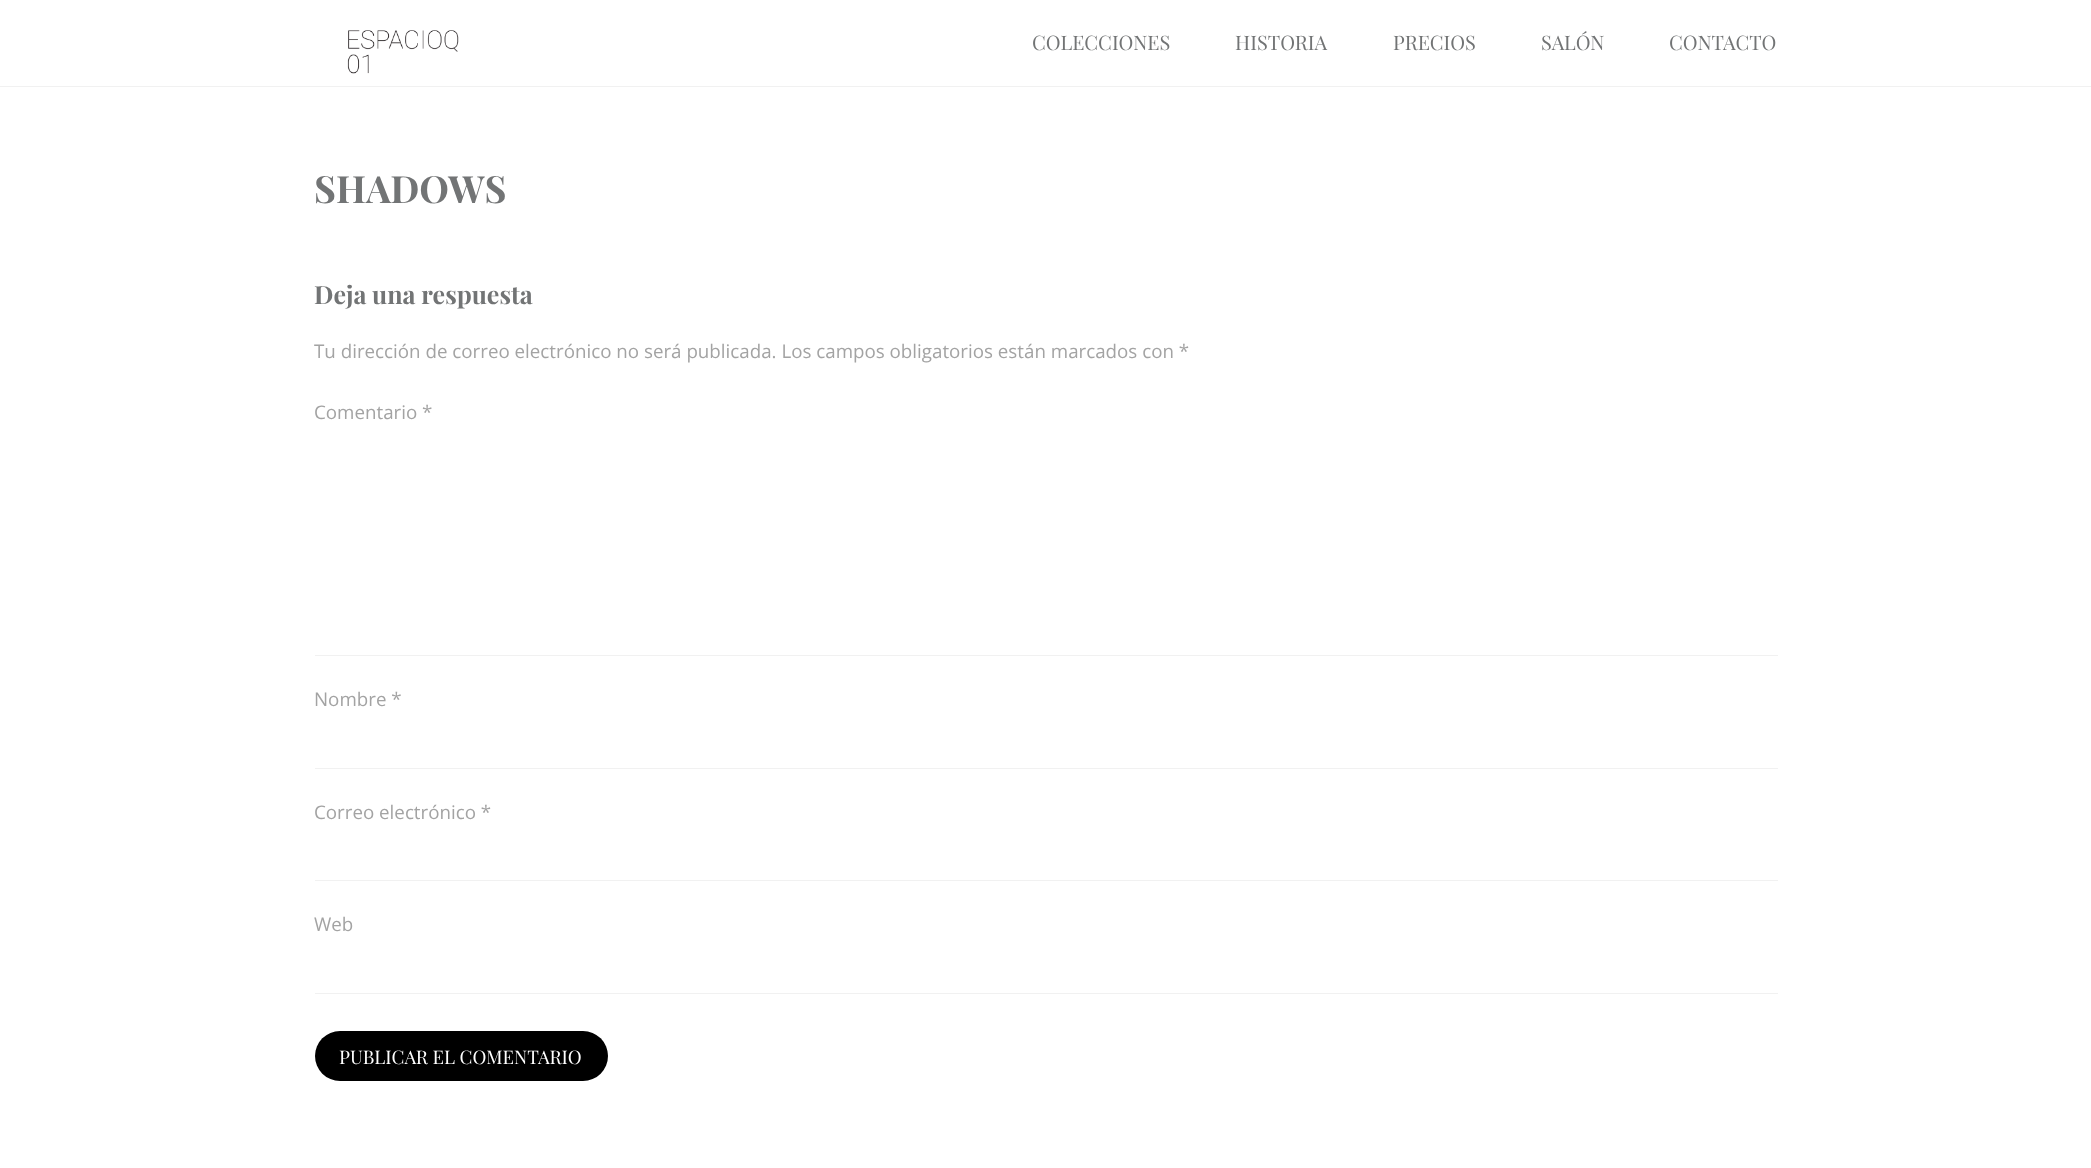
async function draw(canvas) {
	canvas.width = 2091;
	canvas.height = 1168;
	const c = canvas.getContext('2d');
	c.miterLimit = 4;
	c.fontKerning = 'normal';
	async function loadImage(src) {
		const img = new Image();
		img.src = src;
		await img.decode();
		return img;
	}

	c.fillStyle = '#fff';
	c.fillRect(0, 0, 2091, 1168);
	c.fillStyle = '#f1f1f1';
	c.fillRect(0, 86, 2091, 1);
	c.drawImage(await loadImage('img1.png'), 347, 30, 112, 44);
	c.font = '20px Playfair Display';
	c.fillStyle = '#727475';
	for (const [text, x, y] of [
		['COLECCIONES', 1032, 50],
		['HISTORIA', 1235, 50],
		['PRECIOS', 1393, 50],
		['SALÓN', 1541, 50],
		['CONTACTO', 1669, 50],
	]) {
		c.fillText(text, x, y);
	}
	c.font = 'bold 37.5px Playfair Display';
	c.fillText('SHADOWS', 314, 203);
	c.font = 'bold 25px Playfair Display';
	c.fillText('Deja una respuesta', 314, 304);
	c.font = '18.75px Open Sans';
	c.fillStyle = '#a3a3a3';
	c.fillText('Tu dirección de correo electrónico no será publicada. Los campos obligatorios están marcados con *', 314, 358);
	c.fillText('Comentario *', 314, 419);
	c.fillStyle = '#f1f1f1';
	c.fillRect(315, 655, 1463, 1);
	c.fillStyle = '#a3a3a3';
	c.fillText('Nombre *', 314, 706);
	c.fillStyle = '#f1f1f1';
	c.fillRect(315, 768, 1463, 1);
	c.fillStyle = '#a3a3a3';
	c.fillText('Correo electrónico *', 314, 819);
	c.fillStyle = '#f1f1f1';
	c.fillRect(315, 880, 1463, 1);
	c.fillStyle = '#a3a3a3';
	c.fillText('Web', 314, 931);
	c.fillStyle = '#f1f1f1';
	c.fillRect(315, 993, 1463, 1);
	c.fillStyle = '#000';
	c.beginPath();
	c.roundRect(315, 1031, 293, 50, 25);
	c.fill();
	c.font = '18.75px Playfair Display';
	c.fillStyle = '#fff';
	c.fillText('PUBLICAR EL COMENTARIO', 339, 1064);
}

draw(document.querySelector('canvas'));
